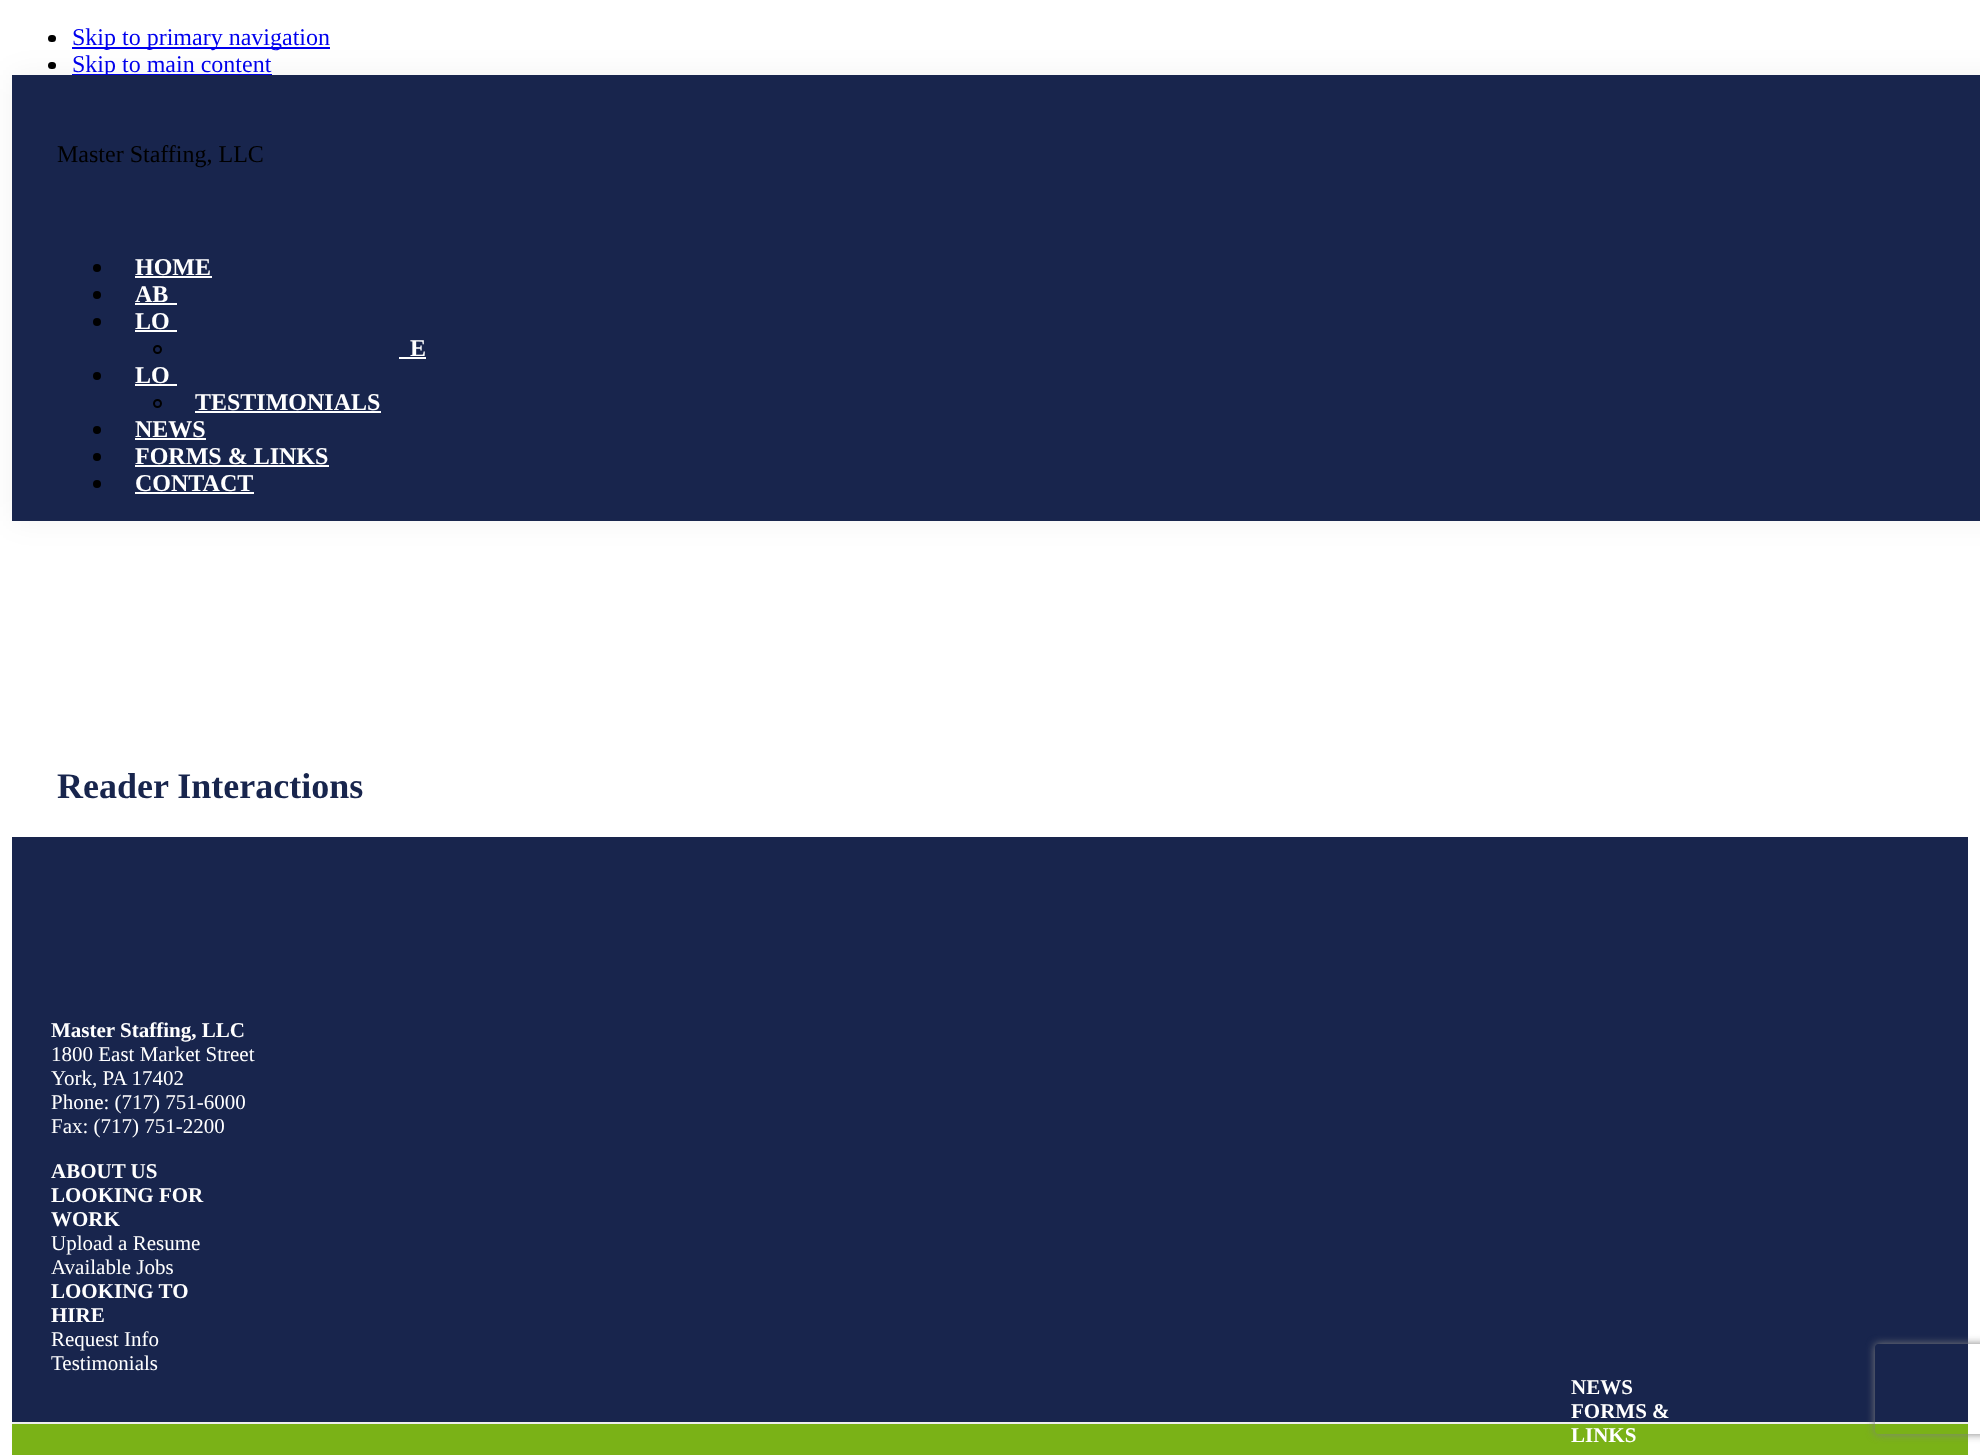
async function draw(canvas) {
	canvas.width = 1980;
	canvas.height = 1455;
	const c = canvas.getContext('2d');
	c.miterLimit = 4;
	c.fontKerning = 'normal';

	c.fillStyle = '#fff';
	c.fillRect(0, 0, 1980, 1455);
	c.fillStyle = '#000';
	c.beginPath();
	c.roundRect(48, 35, 8, 7, 3.5);
	c.fill();
	c.fillStyle = '#00e';
	c.fillRect(72, 47, 258, 2);
	c.font = '24px Liberation Serif';
	c.fillText('Skip to primary navigation', 72, 45);
	c.fillStyle = '#000';
	c.beginPath();
	c.roundRect(48, 62, 8, 7, 3.5);
	c.fill();
	c.fillStyle = '#00e';
	c.fillRect(72, 74, 200, 1);
	c.fillText('Skip to main content', 72, 72);
	c.fillStyle = '#0000000d';
	c.filter = 'blur(15px)';
	c.beginPath();
	c.rect(12, 75, 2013, 446);
	c.fill();
	c.filter = 'none';
	c.fillStyle = '#18254d';
	c.fillRect(12, 75, 1968, 446);
	c.fillStyle = '#000';
	c.fillText('Master Staffing, LLC', 57, 162);
	c.beginPath();
	c.arc(97, 268, 4, 0, 2 * Math.PI);
	c.fill();
	c.font = 'bold 24px Liberation Serif';
	c.fillStyle = '#fff';
	c.fillText('HOME', 135, 275);
	c.fillRect(135, 276, 77, 2);
	c.fillStyle = '#000';
	c.beginPath();
	c.arc(97, 295, 4, 0, 2 * Math.PI);
	c.fill();
	c.fillStyle = '#fff';
	c.fillText('AB', 135, 302);
	c.fillRect(135, 303, 42, 2);
	c.fillStyle = '#000';
	c.beginPath();
	c.arc(97, 322, 4, 0, 2 * Math.PI);
	c.fill();
	c.fillStyle = '#fff';
	c.fillText('LO', 135, 329);
	c.fillRect(135, 330, 42, 2);
	c.beginPath();
	c.arc(157.5, 349.5, 3.5, 0, 2 * Math.PI);
	c.strokeStyle = '#000';
	c.lineWidth = 2;
	c.stroke();
	c.fillText('E', 410, 356);
	c.fillRect(399, 357, 27, 2);
	c.fillStyle = '#000';
	c.beginPath();
	c.arc(97, 376, 4, 0, 2 * Math.PI);
	c.fill();
	c.fillStyle = '#fff';
	c.fillText('LO', 135, 383);
	c.fillRect(135, 384, 42, 2);
	c.beginPath();
	c.arc(157.5, 403.5, 3.5, 0, 2 * Math.PI);
	c.stroke();
	c.fillText('TESTIMONIALS', 195, 410);
	c.fillRect(195, 411, 186, 2);
	c.fillStyle = '#000';
	c.beginPath();
	c.arc(97, 430, 4, 0, 2 * Math.PI);
	c.fill();
	c.fillStyle = '#fff';
	c.fillText('NEWS', 135, 437);
	c.fillRect(135, 438, 71, 2);
	c.fillStyle = '#000';
	c.beginPath();
	c.arc(97, 457, 4, 0, 2 * Math.PI);
	c.fill();
	c.fillStyle = '#fff';
	c.fillText('FORMS & LINKS', 135, 464);
	c.fillRect(135, 465, 194, 2);
	c.fillStyle = '#000';
	c.beginPath();
	c.arc(97, 484, 4, 0, 2 * Math.PI);
	c.fill();
	c.fillStyle = '#fff';
	c.fillText('CONTACT', 135, 491);
	c.fillRect(135, 492, 119, 2);
	c.font = 'bold 36px Liberation Serif';
	c.fillStyle = '#18254d';
	c.fillText('Reader Interactions', 57, 798);
	c.fillRect(12, 837, 1956, 585);
	c.font = 'bold 21px Liberation Serif';
	c.fillStyle = '#fff';
	c.fillText('Master Staffing, LLC', 51, 1037);
	c.font = '21px Liberation Serif';
	for (const [text, x, y] of [
		['1800 East Market Street', 51, 1061],
		['York, PA 17402', 51, 1085],
		['Phone: (717) 751-6000', 51, 1109],
		['Fax: (717) 751-2200', 51, 1133],
	]) {
		c.fillText(text, x, y);
	}
	c.font = 'bold 21px Liberation Serif';
	for (const [text, x, y] of [
		['ABOUT US', 51, 1178],
		['LOOKING FOR', 51, 1202],
		['WORK', 51, 1226],
	]) {
		c.fillText(text, x, y);
	}
	c.font = '21px Liberation Serif';
	c.fillText('Upload a Resume', 51, 1250);
	c.fillText('Available Jobs', 51, 1274);
	c.font = 'bold 21px Liberation Serif';
	c.fillText('LOOKING TO', 51, 1298);
	c.fillText('HIRE', 51, 1322);
	c.font = '21px Liberation Serif';
	c.fillText('Request Info', 51, 1346);
	c.fillText('Testimonials', 51, 1370);
	c.font = 'bold 21px Liberation Serif';
	c.fillText('NEWS', 1571, 1394);
	c.fillText('FORMS &', 1571, 1418);
	c.fillStyle = '#7ab217';
	c.fillRect(12, 1424, 1956, 31);
	c.fillStyle = '#fff';
	c.fillText('LINKS', 1571, 1442);
	c.fillStyle = '#eee';
	c.fillRect(12, 1422, 1956, 2);
	c.save();
	c.beginPath();
	c.moveTo(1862, 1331);
	c.lineTo(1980, 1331);
	c.lineTo(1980, 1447);
	c.lineTo(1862, 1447);
	c.closePath();
	c.moveTo(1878, 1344);
	c.lineTo(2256, 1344);
	c.bezierCurveTo(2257.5, 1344, 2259, 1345.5, 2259, 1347);
	c.lineTo(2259, 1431);
	c.bezierCurveTo(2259, 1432.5, 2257.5, 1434, 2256, 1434);
	c.lineTo(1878, 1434);
	c.bezierCurveTo(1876.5, 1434, 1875, 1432.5, 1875, 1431);
	c.lineTo(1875, 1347);
	c.bezierCurveTo(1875, 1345.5, 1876.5, 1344, 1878, 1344);
	c.closePath();
	c.clip('evenodd');
	c.fillStyle = '#808080';
	c.filter = 'blur(4px)';
	c.beginPath();
	c.roundRect(1875, 1344, 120, 90, 3);
	c.fill();
	c.filter = 'none';
	c.restore();
}

draw(document.querySelector('canvas'));
